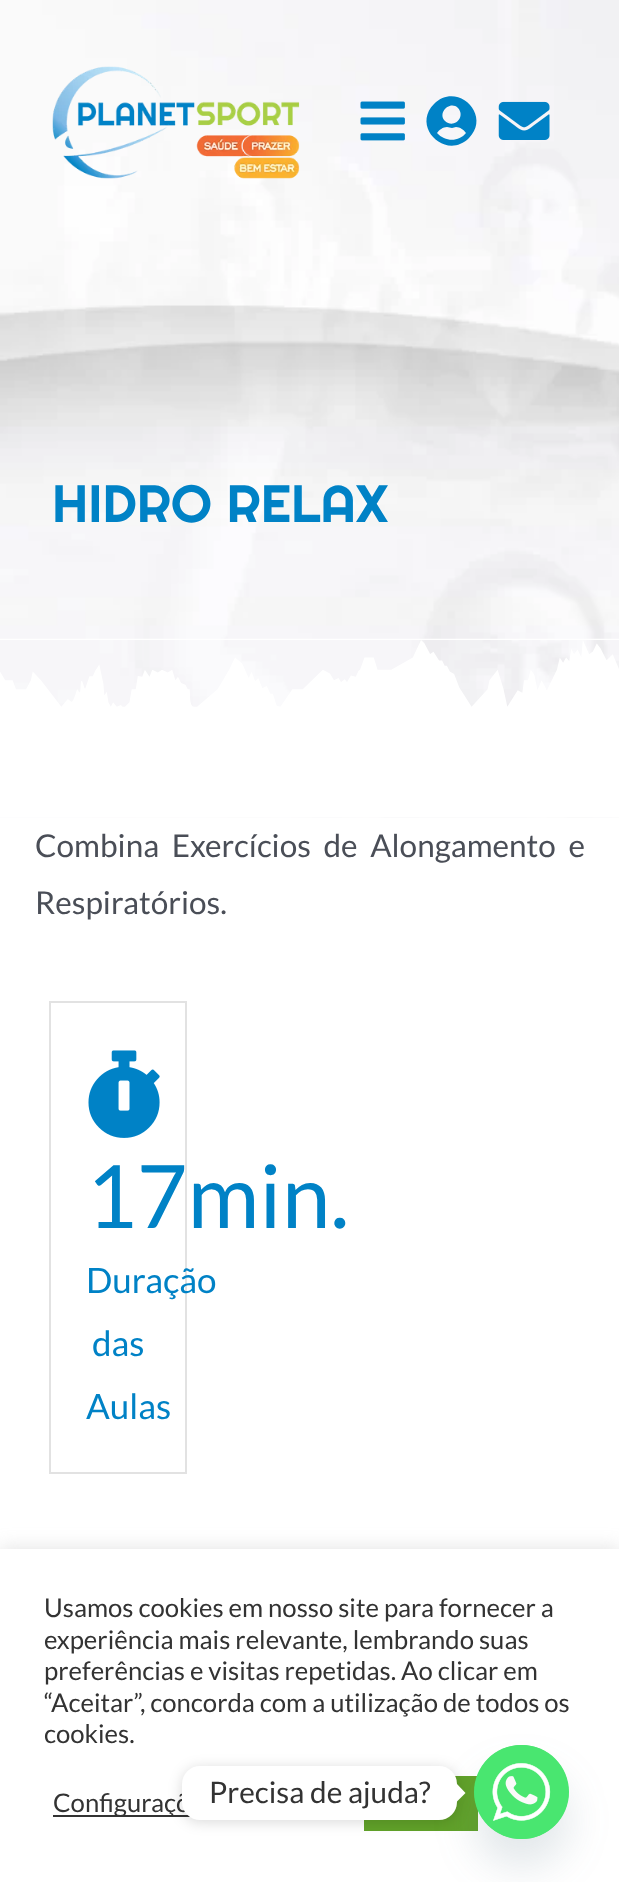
async function draw(canvas) {
	canvas.width = 619;
	canvas.height = 1882;
	const c = canvas.getContext('2d');
	c.miterLimit = 4;
	c.fontKerning = 'normal';
	async function loadImage(src) {
		const img = new Image();
		img.src = src;
		await img.decode();
		return img;
	}

	c.fillStyle = '#fff';
	c.fillRect(0, 0, 619, 1882);
	c.drawImage(await loadImage('img4.png'), 0, 0, 619, 818);
	c.drawImage(await loadImage('img1.png'), 52, 66, 248, 113);
	c.drawImage(await loadImage('img2.png'), 360, 101, 45, 40);
	c.fillStyle = '#0082c6';
	c.beginPath();
	c.moveTo(434, 104);
	c.bezierCurveTo(457, 81, 492, 115, 469, 138);
	c.bezierCurveTo(446, 161, 411, 127, 434, 104);
	c.closePath();
	c.moveTo(458, 108);
	c.bezierCurveTo(450, 100, 437, 113, 445, 121);
	c.bezierCurveTo(454, 129, 466, 117, 458, 108);
	c.closePath();
	c.moveTo(437, 133);
	c.bezierCurveTo(445, 142, 459, 142, 466, 133);
	c.bezierCurveTo(464, 130, 460, 127, 456, 127);
	c.lineTo(452, 128);
	c.lineTo(447, 127);
	c.bezierCurveTo(443, 127, 439, 130, 437, 133);
	c.closePath();
	c.fill();
	c.drawImage(await loadImage('img3.png'), 498, 101, 52, 39);
	c.font = '52.5px Righteous';
	c.fillText('HIDRO RELAX', 52, 522);
	c.drawImage(await loadImage('img5.png'), 0, 638, 619, 179);
	c.wordSpacing = '6.5px';
	c.font = '31.5px Lato';
	c.fillStyle = '#4a4e57';
	c.fillText('Combina Exercícios de Alongamento e', 35, 857);
	c.wordSpacing = '0px';
	c.fillText('Respiratórios.', 35, 914);
	c.strokeStyle = '#e2e2e2';
	c.lineWidth = 2;
	c.strokeRect(50, 1002, 136, 471);
	c.drawImage(await loadImage('img6.png'), 88, 1050, 72, 88);
	c.font = '87.5px Lato';
	c.fillStyle = '#0082c6';
	c.fillText('17min.', 86, 1228);
	c.font = '35px Lato';
	for (const [text, x, y] of [
		['Duração', 86, 1293],
		['das', 92, 1356],
		['Aulas', 86, 1419],
	]) {
		c.fillText(text, x, y);
	}
	c.fillStyle = '#acabab4d';
	c.filter = 'blur(9px)';
	c.beginPath();
	c.rect(0, 1547, 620, 334);
	c.fill();
	c.filter = 'none';
	c.fillStyle = '#fff';
	c.fillRect(0, 1549, 619, 333);
	c.font = '25.7px Lato';
	c.fillStyle = '#333';
	for (const [text, x, y] of [
		['Usamos cookies em nosso site para fornecer a', 44, 1617],
		['experiência mais relevante, lembrando suas', 44, 1649],
		['preferências e visitas repetidas. Ao clicar em', 44, 1680],
		['“Aceitar”, concorda com a utilização de todos os', 44, 1712],
		['cookies.', 44, 1743],
	]) {
		c.fillText(text, x, y);
	}
	c.fillRect(53, 1815, 137, 2);
	c.fillText('Configuraçõ', 53, 1812);
	c.fillStyle = '#61a229';
	c.fillRect(364, 1776, 114, 55);
	c.fillStyle = '#49687e29';
	c.filter = 'blur(21px)';
	c.beginPath();
	c.roundRect(474, 1773, 95, 94, 47);
	c.fill();
	c.filter = 'none';
	c.fillStyle = '#49e670';
	c.beginPath();
	c.roundRect(474, 1745, 95, 94, 47);
	c.fill();
	c.drawImage(await loadImage('img7.png'), 474, 1745, 95, 94);
	c.fillStyle = '#00000026';
	c.filter = 'blur(7px)';
	c.beginPath();
	c.roundRect(182, 1768, 275, 54, 18);
	c.fill();
	c.filter = 'none';
	c.fillStyle = '#fff';
	c.beginPath();
	c.roundRect(182, 1766, 275, 54, 18);
	c.fill();
	c.font = '29.75px Lato';
	c.fillStyle = '#333';
	c.fillText('Precisa de ajuda?', 209, 1803);
	c.fillStyle = '#fff';
	c.beginPath();
	c.moveTo(457, 1801.5);
	c.lineTo(457, 1784);
	c.lineTo(465.5, 1793);
	c.closePath();
	c.fill();
}

draw(document.querySelector('canvas'));
